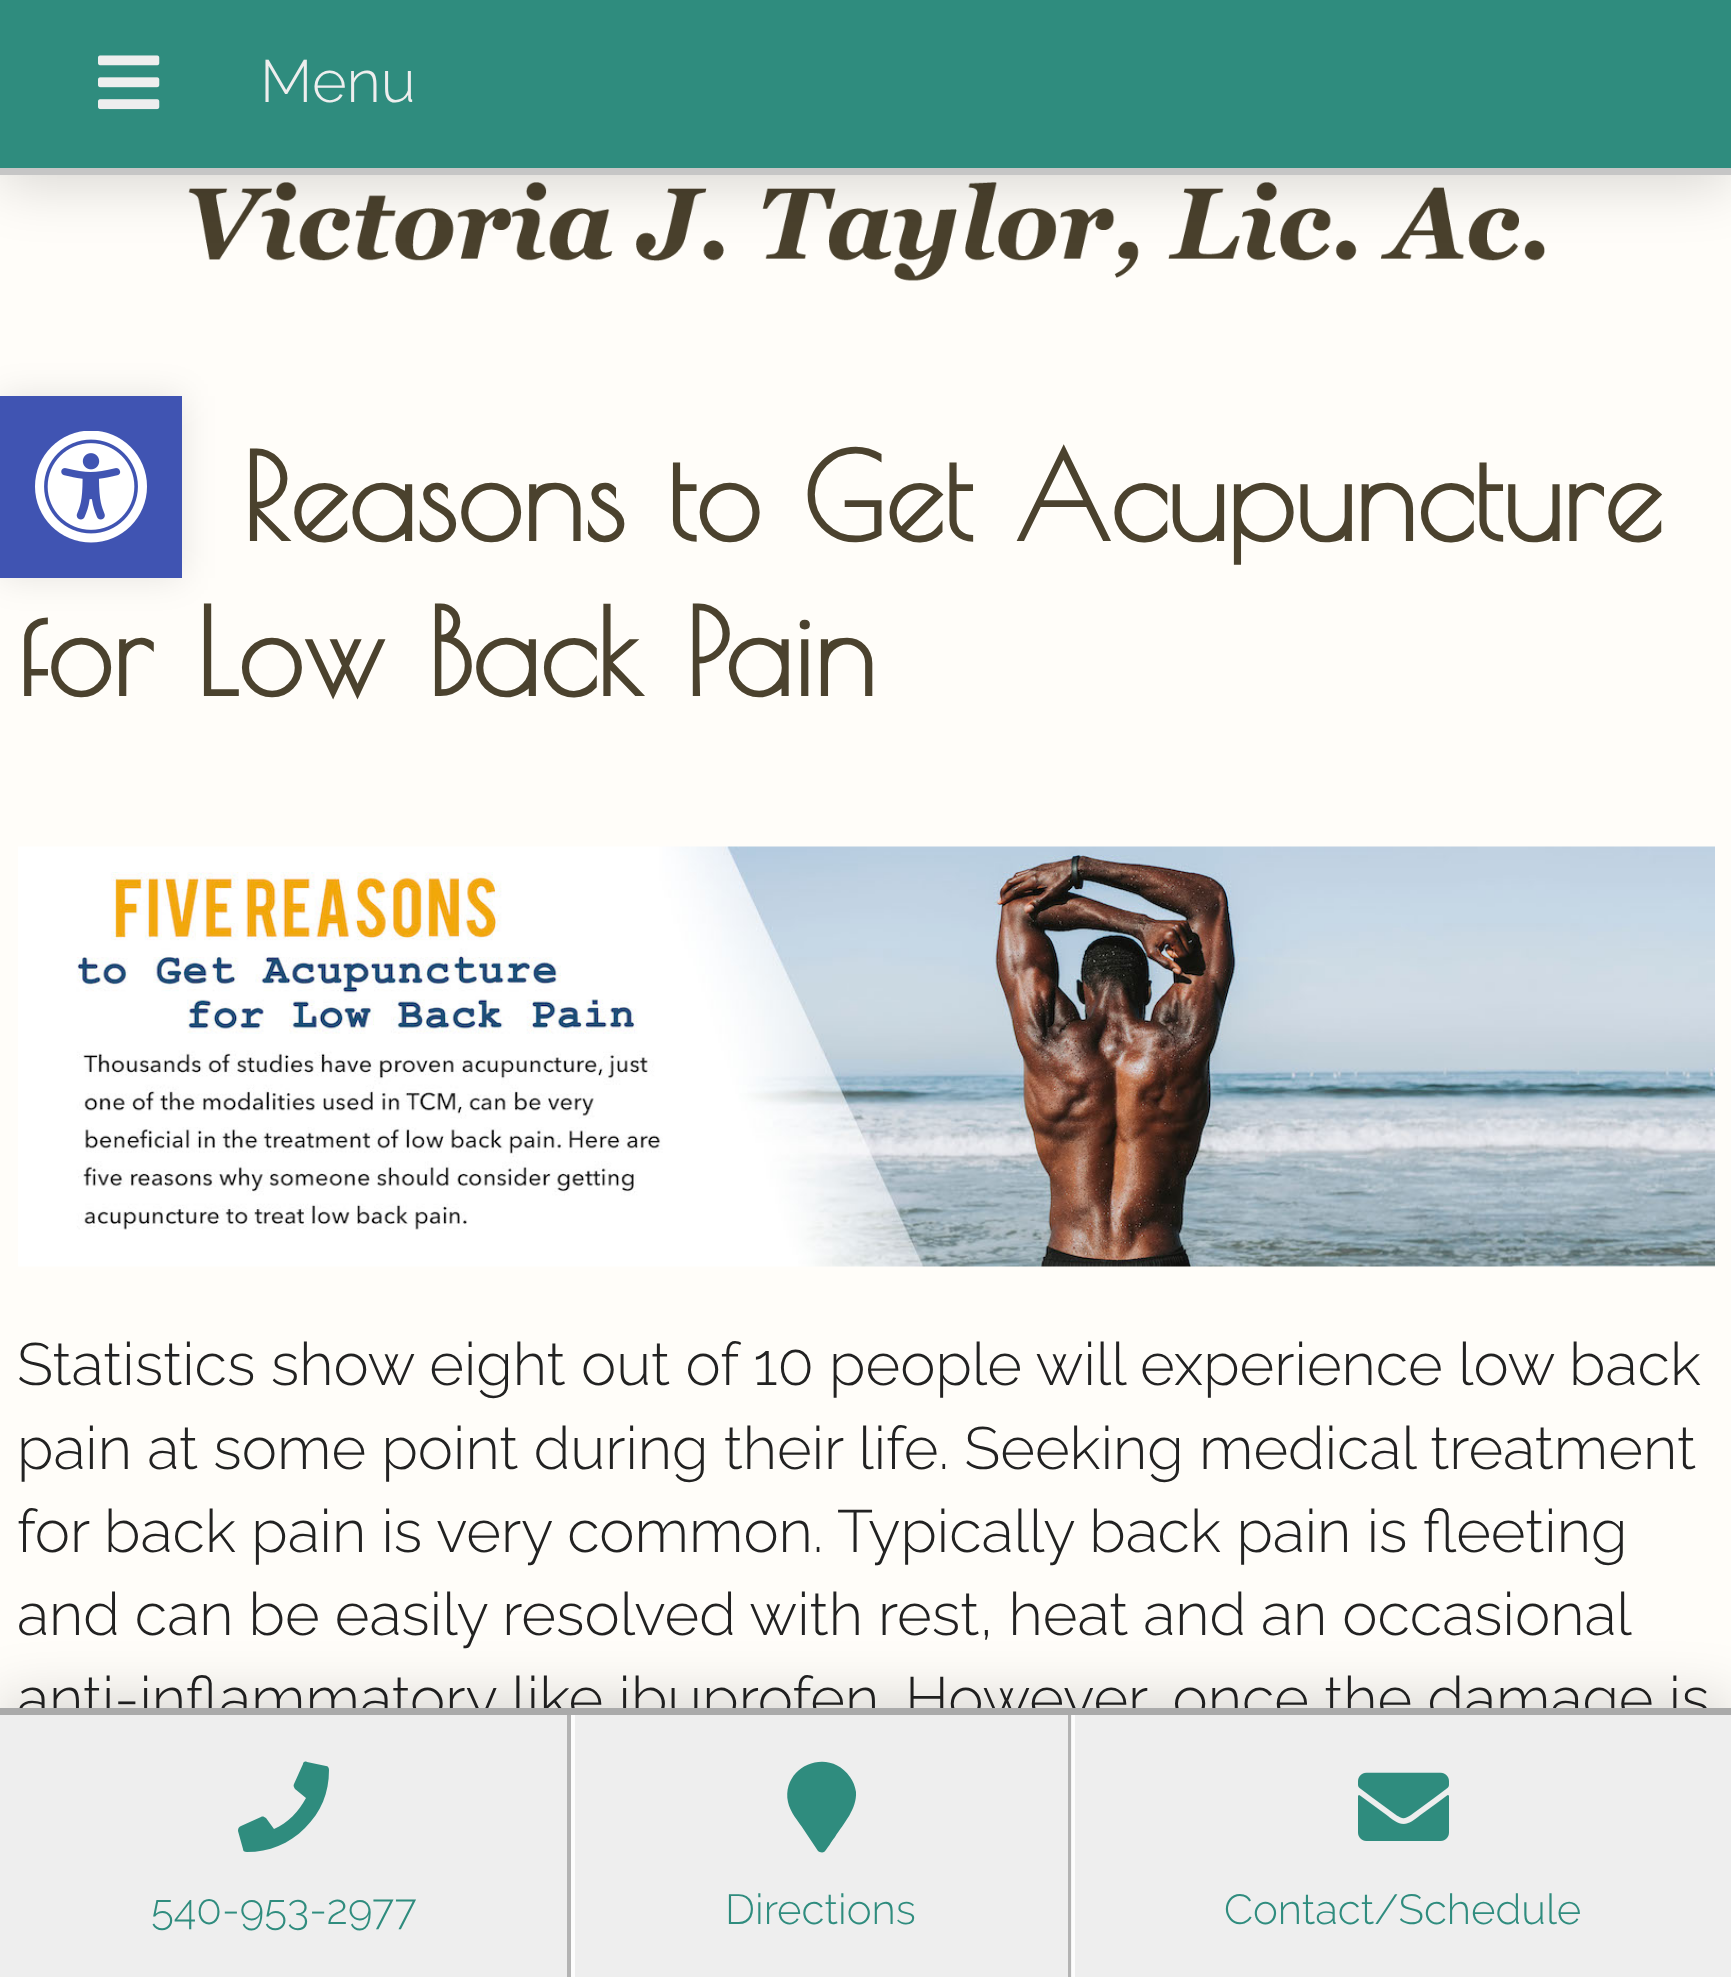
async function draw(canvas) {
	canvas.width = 1731;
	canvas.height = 1977;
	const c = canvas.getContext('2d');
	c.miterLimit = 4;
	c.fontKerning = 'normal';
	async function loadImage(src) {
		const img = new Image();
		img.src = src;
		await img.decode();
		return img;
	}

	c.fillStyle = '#fffdf9';
	c.fillRect(0, 0, 1731, 1977);
	c.drawImage(await loadImage('img2.png'), 188, 182, 1357, 99);
	c.fillStyle = '#00000026';
	c.filter = 'blur(28px)';
	c.beginPath();
	c.rect(0, 11, 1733, 175);
	c.fill();
	c.filter = 'none';
	c.fillStyle = '#2f8c7e';
	c.fillRect(0, 0, 1731, 168);
	c.fillStyle = '#c6c6c6';
	c.fillRect(0, 168, 1731, 7);
	c.drawImage(await loadImage('img1.png'), 98, 55, 62, 55);
	c.font = '300 59.5px Raleway';
	c.fillStyle = '#eee';
	c.fillText('Menu', 260, 102);
	c.font = 'bold 119px Poiret One';
	c.fillStyle = '#4b422e';
	c.fillText('Reasons to Get Acupuncture', 241, 541);
	c.fillText('for Low Back Pain', 17, 696);
	c.drawImage(await loadImage('img3.png'), 18, 846, 1697, 421);
	c.font = '300 59.5px Raleway';
	c.fillStyle = '#222';
	for (const [text, x, y] of [
		['Statistics show eight out of 10 people will experience low back', 17, 1385],
		['pain at some point during their life. Seeking medical treatment', 17, 1469],
		['for back pain is very common. Typically back pain is fleeting', 17, 1552],
	]) {
		c.fillText(text, x, y);
	}
	c.wordSpacing = '-0.25px';
	c.fillText('and can be easily resolved with rest, heat and an occasional', 17, 1635);
	c.wordSpacing = '0px';
	c.fillText('anti-inflammatory like ibuprofen. However, once the damage is', 17, 1719);
	c.fillStyle = '#0000001a';
	c.filter = 'blur(17.5px)';
	c.beginPath();
	c.rect(0, 396, 182, 182);
	c.fill();
	c.filter = 'none';
	c.fillStyle = '#4054b2';
	c.fillRect(0, 396, 182, 182);
	c.drawImage(await loadImage('img4.png'), 35, 431, 112, 112);
	c.fillStyle = '#00000026';
	c.filter = 'blur(28px)';
	c.beginPath();
	c.rect(0, 1698, 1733, 269);
	c.fill();
	c.filter = 'none';
	for (const [x, y, w, h, color] of [
		[0, 1715, 1731, 262, '#eee'],
		[0, 1708, 1731, 7, '#aaa'],
		[567, 1715, 4, 262, '#b3b3b3'],
	]) {
		c.fillStyle = color;
		c.fillRect(x, y, w, h);
	}
	c.fillStyle = '#2f8c7e';
	c.beginPath();
	c.moveTo(326, 1766);
	c.bezierCurveTo(328, 1766, 329, 1768, 329, 1770);
	c.bezierCurveTo(329, 1793, 321, 1812, 305, 1828);
	c.bezierCurveTo(289, 1844, 269, 1852, 247, 1852);
	c.bezierCurveTo(244, 1852, 243, 1851, 243, 1849);
	c.lineTo(238, 1831);
	c.bezierCurveTo(238, 1828, 239, 1827, 241, 1826);
	c.lineTo(261, 1817);
	c.bezierCurveTo(263, 1816, 264, 1817, 266, 1818);
	c.lineTo(274, 1829);
	c.bezierCurveTo(288, 1823, 299, 1811, 306, 1798);
	c.lineTo(295, 1789);
	c.bezierCurveTo(294, 1787, 293, 1786, 294, 1784);
	c.lineTo(303, 1764);
	c.bezierCurveTo(303, 1762, 305, 1761, 307, 1762);
	c.closePath();
	c.fill();
	c.font = '300 42px Raleway';
	c.fillText('540-953-2977', 151, 1924);
	c.fillStyle = '#b3b3b3';
	c.fillRect(1068, 1715, 4, 262);
	c.fillStyle = '#fdfdfd';
	c.fillRect(571, 1715, 4, 262);
	c.fillStyle = '#2f8c7e';
	c.beginPath();
	c.moveTo(818, 1851);
	c.lineTo(804, 1830);
	c.bezierCurveTo(798, 1821, 790, 1812, 788, 1802);
	c.bezierCurveTo(781, 1766, 829, 1746, 850, 1777);
	c.bezierCurveTo(853, 1781, 855, 1786, 856, 1792);
	c.bezierCurveTo(857, 1809, 844, 1823, 835, 1837);
	c.bezierCurveTo(833, 1839, 826, 1851, 824, 1852);
	c.bezierCurveTo(822, 1853, 819, 1852, 818, 1851);
	c.closePath();
	c.fill();
	c.fillText('Directions', 725, 1924);
	c.fillStyle = '#ffffffde';
	c.fillRect(1071, 1715, 4, 262);
	c.drawImage(await loadImage('img5.png'), 1358, 1772, 91, 69);
	c.fillStyle = '#2f8c7e';
	c.fillText('Contact/Schedule', 1224, 1924);
}

draw(document.querySelector('canvas'));
